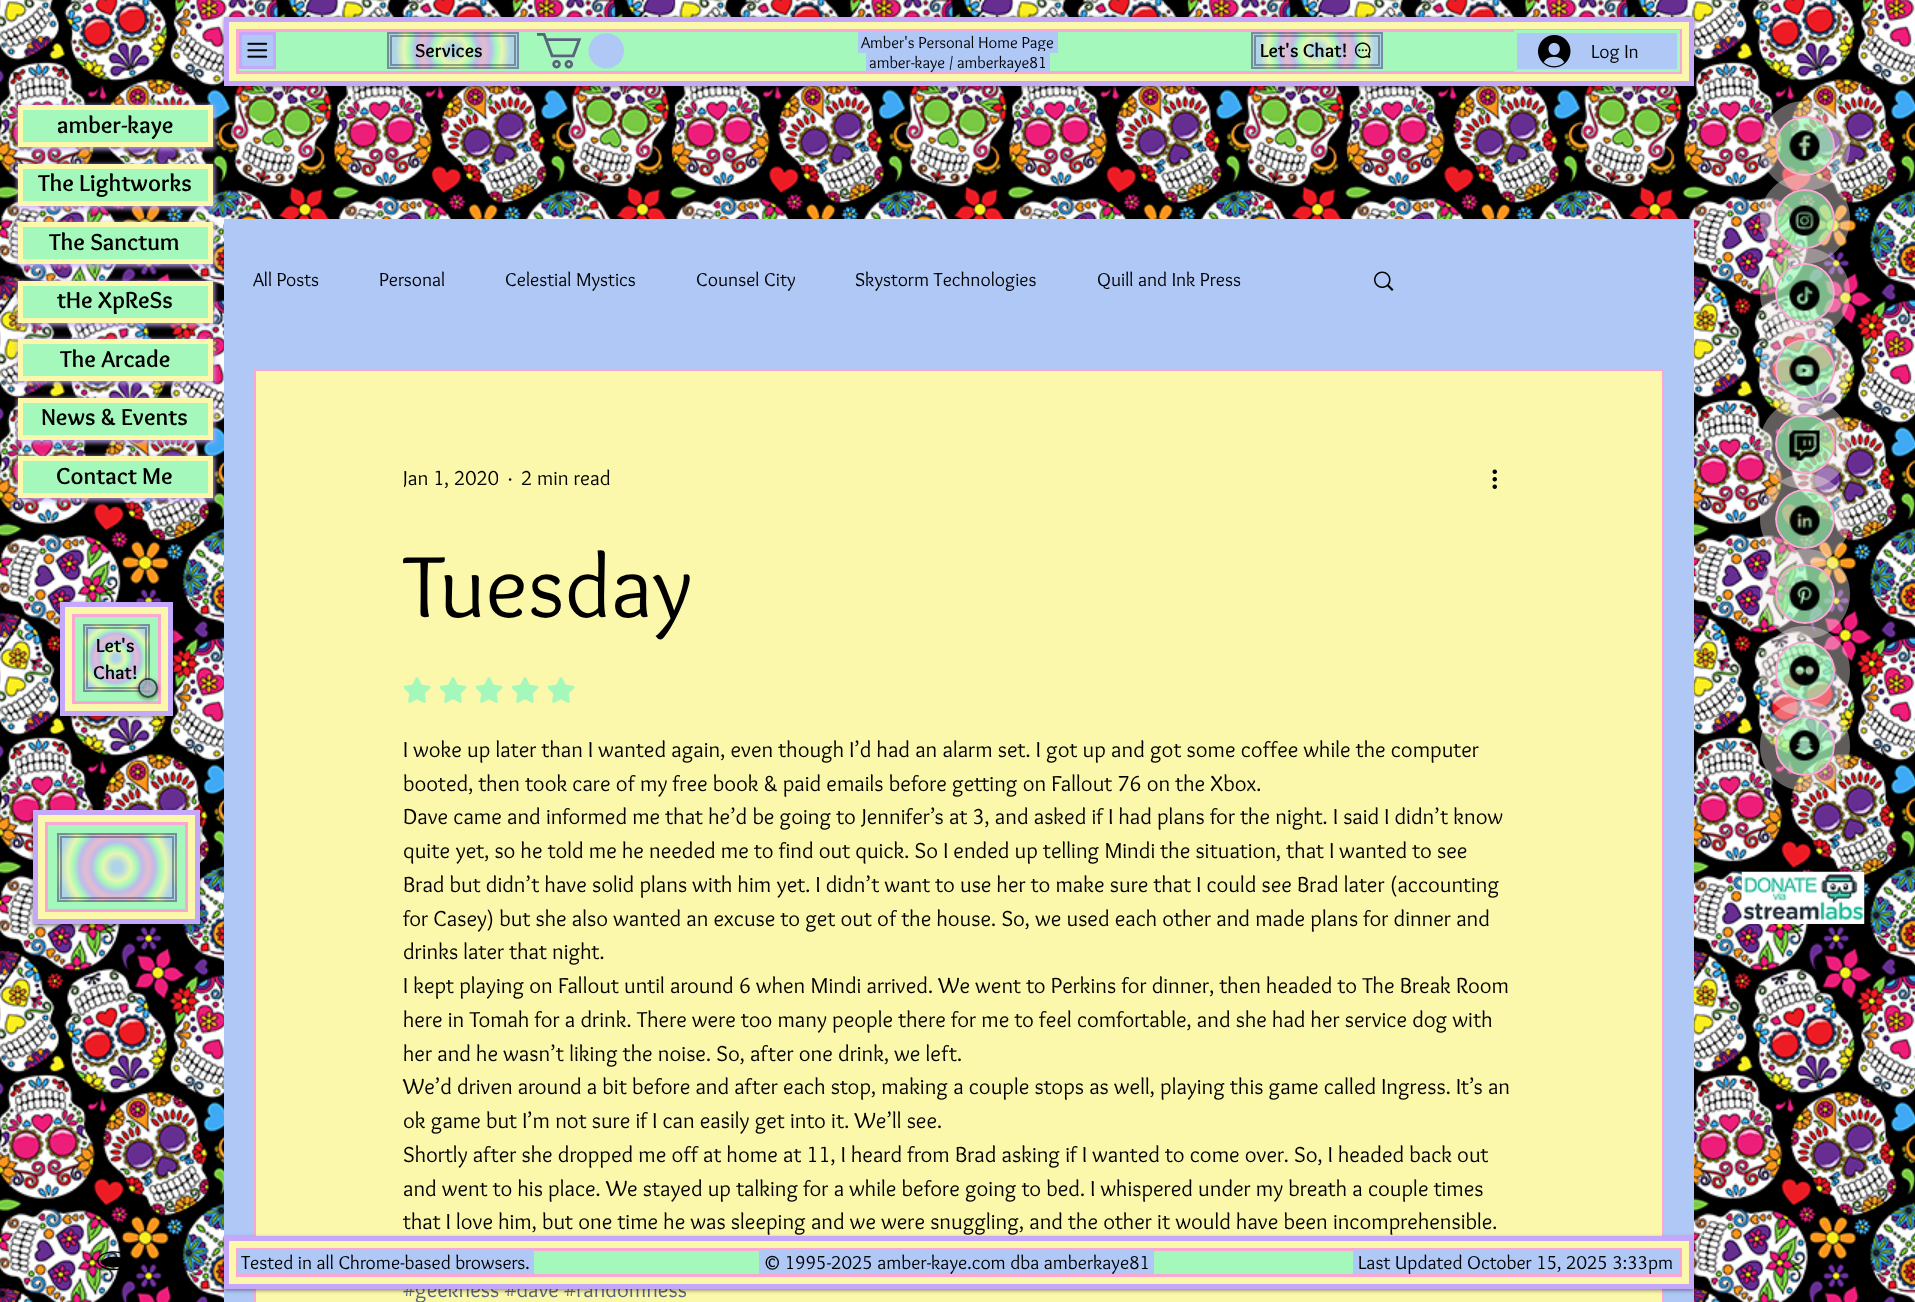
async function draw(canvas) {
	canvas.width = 1915;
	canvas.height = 1302;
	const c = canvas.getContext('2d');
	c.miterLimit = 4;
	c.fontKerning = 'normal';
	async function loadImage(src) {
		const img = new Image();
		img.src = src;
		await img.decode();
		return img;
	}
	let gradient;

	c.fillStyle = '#fff';
	c.fillRect(0, 0, 1915, 1302);
	c.drawImage(await loadImage('img1.png'), 0, 0, 1915, 1302);
	c.fillStyle = '#00000080';
	c.filter = 'blur(2px)';
	c.beginPath();
	c.rect(224, 18, 1470, 69);
	c.fill();
	c.filter = 'none';
	c.fillStyle = '#fbf7ab';
	c.beginPath();
	c.rect(226.5, 19.5, 1465, 64);
	c.fill();
	c.strokeStyle = '#c5a7fb';
	c.lineWidth = 5;
	c.stroke();
	c.fillStyle = '#a5f8bb';
	c.fillRect(239, 32, 1275, 39);
	c.strokeStyle = '#fba7d4';
	c.lineWidth = 3;
	c.strokeRect(237.5, 30.5, 1443, 42);
	c.fillStyle = '#afc8f6';
	c.beginPath();
	c.rect(240.5, 33.5, 34, 34);
	c.fill();
	c.strokeStyle = '#c5a7fb';
	c.stroke();
	c.drawImage(await loadImage('img2.png'), 247, 42, 21, 16);
	gradient = c.createRadialGradient(330, 22, 0, 330, 22, 63);
	gradient.addColorStop(0.08, '#add4e7');
	gradient.addColorStop(0.22, '#e6f7af');
	gradient.addColorStop(0.31, '#a5f8bb');
	gradient.addColorStop(0.4, '#bdbbeb');
	gradient.addColorStop(0.5, '#e6bbce');
	gradient.addColorStop(0.6, '#bdbbeb');
	gradient.addColorStop(0.69, '#a5f8bb');
	gradient.addColorStop(0.78, '#e6f7af');
	gradient.addColorStop(0.92, '#add4e7');
	c.fillStyle = gradient;
	c.fillRect(387, 32, 5, 4);
	gradient = c.createRadialGradient(453, 22, 0, 453, 22, 63);
	gradient.addColorStop(0.08, '#add4e7');
	gradient.addColorStop(0.22, '#e6f7af');
	gradient.addColorStop(0.31, '#a5f8bb');
	gradient.addColorStop(0.4, '#bdbbeb');
	gradient.addColorStop(0.5, '#e6bbce');
	gradient.addColorStop(0.6, '#bdbbeb');
	gradient.addColorStop(0.69, '#a5f8bb');
	gradient.addColorStop(0.78, '#e6f7af');
	gradient.addColorStop(0.92, '#add4e7');
	c.fillStyle = gradient;
	c.fillRect(392, 32, 123, 4);
	gradient = c.createRadialGradient(576, 22, 0, 576, 22, 63);
	gradient.addColorStop(0.08, '#add4e7');
	gradient.addColorStop(0.22, '#e6f7af');
	gradient.addColorStop(0.31, '#a5f8bb');
	gradient.addColorStop(0.4, '#bdbbeb');
	gradient.addColorStop(0.5, '#e6bbce');
	gradient.addColorStop(0.6, '#bdbbeb');
	gradient.addColorStop(0.69, '#a5f8bb');
	gradient.addColorStop(0.78, '#e6f7af');
	gradient.addColorStop(0.92, '#add4e7');
	c.fillStyle = gradient;
	c.fillRect(515, 32, 4, 4);
	gradient = c.createRadialGradient(330, 50, 0, 330, 50, 63);
	gradient.addColorStop(0.08, '#add4e7');
	gradient.addColorStop(0.22, '#e6f7af');
	gradient.addColorStop(0.31, '#a5f8bb');
	gradient.addColorStop(0.4, '#bdbbeb');
	gradient.addColorStop(0.5, '#e6bbce');
	gradient.addColorStop(0.6, '#bdbbeb');
	gradient.addColorStop(0.69, '#a5f8bb');
	gradient.addColorStop(0.78, '#e6f7af');
	gradient.addColorStop(0.92, '#add4e7');
	c.fillStyle = gradient;
	c.fillRect(387, 36, 5, 29);
	gradient = c.createRadialGradient(453, 50, 0, 453, 50, 63);
	gradient.addColorStop(0.08, '#add4e7');
	gradient.addColorStop(0.22, '#e6f7af');
	gradient.addColorStop(0.31, '#a5f8bb');
	gradient.addColorStop(0.4, '#bdbbeb');
	gradient.addColorStop(0.5, '#e6bbce');
	gradient.addColorStop(0.6, '#bdbbeb');
	gradient.addColorStop(0.69, '#a5f8bb');
	gradient.addColorStop(0.78, '#e6f7af');
	gradient.addColorStop(0.92, '#add4e7');
	c.fillStyle = gradient;
	c.fillRect(392, 36, 123, 29);
	gradient = c.createRadialGradient(576, 50, 0, 576, 50, 63);
	gradient.addColorStop(0.08, '#add4e7');
	gradient.addColorStop(0.22, '#e6f7af');
	gradient.addColorStop(0.31, '#a5f8bb');
	gradient.addColorStop(0.4, '#bdbbeb');
	gradient.addColorStop(0.5, '#e6bbce');
	gradient.addColorStop(0.6, '#bdbbeb');
	gradient.addColorStop(0.69, '#a5f8bb');
	gradient.addColorStop(0.78, '#e6f7af');
	gradient.addColorStop(0.92, '#add4e7');
	c.fillStyle = gradient;
	c.fillRect(515, 36, 4, 29);
	gradient = c.createRadialGradient(330, 79, 0, 330, 79, 63);
	gradient.addColorStop(0.08, '#add4e7');
	gradient.addColorStop(0.22, '#e6f7af');
	gradient.addColorStop(0.31, '#a5f8bb');
	gradient.addColorStop(0.4, '#bdbbeb');
	gradient.addColorStop(0.5, '#e6bbce');
	gradient.addColorStop(0.6, '#bdbbeb');
	gradient.addColorStop(0.69, '#a5f8bb');
	gradient.addColorStop(0.78, '#e6f7af');
	gradient.addColorStop(0.92, '#add4e7');
	c.fillStyle = gradient;
	c.fillRect(387, 65, 5, 4);
	gradient = c.createRadialGradient(453, 79, 0, 453, 79, 63);
	gradient.addColorStop(0.08, '#add4e7');
	gradient.addColorStop(0.22, '#e6f7af');
	gradient.addColorStop(0.31, '#a5f8bb');
	gradient.addColorStop(0.4, '#bdbbeb');
	gradient.addColorStop(0.5, '#e6bbce');
	gradient.addColorStop(0.6, '#bdbbeb');
	gradient.addColorStop(0.69, '#a5f8bb');
	gradient.addColorStop(0.78, '#e6f7af');
	gradient.addColorStop(0.92, '#add4e7');
	c.fillStyle = gradient;
	c.fillRect(392, 65, 123, 4);
	gradient = c.createRadialGradient(576, 79, 0, 576, 79, 63);
	gradient.addColorStop(0.08, '#add4e7');
	gradient.addColorStop(0.22, '#e6f7af');
	gradient.addColorStop(0.31, '#a5f8bb');
	gradient.addColorStop(0.4, '#bdbbeb');
	gradient.addColorStop(0.5, '#e6bbce');
	gradient.addColorStop(0.6, '#bdbbeb');
	gradient.addColorStop(0.69, '#a5f8bb');
	gradient.addColorStop(0.78, '#e6f7af');
	gradient.addColorStop(0.92, '#add4e7');
	c.fillStyle = gradient;
	c.fillRect(515, 65, 4, 4);
	c.strokeStyle = '#00000054';
	c.lineWidth = 2;
	c.strokeRect(388, 33, 130, 35);
	c.strokeRect(391, 36, 124, 29);
	c.font = 'bold 19.5px Overlock';
	c.fillStyle = '#000';
	c.fillText('Services', 415, 57);
	c.drawImage(await loadImage('img3.png'), 537, 33, 87, 36);
	c.fillStyle = '#afc8f6';
	c.fillRect(858, 32, 200, 21);
	c.font = '16.5px Overlock';
	c.fillStyle = '#000';
	c.fillText('Amber\'s Personal Home Page', 861, 48);
	c.fillStyle = '#afc8f6';
	c.fillRect(866, 51, 184, 21);
	c.fillStyle = '#000';
	c.fillText('amber-kaye / amberkaye81', 869, 68);
	gradient = c.createRadialGradient(1194, 22, 0, 1194, 22, 63);
	gradient.addColorStop(0.08, '#add4e7');
	gradient.addColorStop(0.22, '#e6f7af');
	gradient.addColorStop(0.31, '#a5f8bb');
	gradient.addColorStop(0.4, '#bdbbeb');
	gradient.addColorStop(0.5, '#e6bbce');
	gradient.addColorStop(0.6, '#bdbbeb');
	gradient.addColorStop(0.69, '#a5f8bb');
	gradient.addColorStop(0.78, '#e6f7af');
	gradient.addColorStop(0.92, '#add4e7');
	c.fillStyle = gradient;
	c.fillRect(1251, 32, 5, 4);
	gradient = c.createRadialGradient(1317, 22, 0, 1317, 22, 63);
	gradient.addColorStop(0.08, '#add4e7');
	gradient.addColorStop(0.22, '#e6f7af');
	gradient.addColorStop(0.31, '#a5f8bb');
	gradient.addColorStop(0.4, '#bdbbeb');
	gradient.addColorStop(0.5, '#e6bbce');
	gradient.addColorStop(0.6, '#bdbbeb');
	gradient.addColorStop(0.69, '#a5f8bb');
	gradient.addColorStop(0.78, '#e6f7af');
	gradient.addColorStop(0.92, '#add4e7');
	c.fillStyle = gradient;
	c.fillRect(1256, 32, 123, 4);
	gradient = c.createRadialGradient(1440, 22, 0, 1440, 22, 63);
	gradient.addColorStop(0.08, '#add4e7');
	gradient.addColorStop(0.22, '#e6f7af');
	gradient.addColorStop(0.31, '#a5f8bb');
	gradient.addColorStop(0.4, '#bdbbeb');
	gradient.addColorStop(0.5, '#e6bbce');
	gradient.addColorStop(0.6, '#bdbbeb');
	gradient.addColorStop(0.69, '#a5f8bb');
	gradient.addColorStop(0.78, '#e6f7af');
	gradient.addColorStop(0.92, '#add4e7');
	c.fillStyle = gradient;
	c.fillRect(1379, 32, 4, 4);
	gradient = c.createRadialGradient(1194, 50, 0, 1194, 50, 63);
	gradient.addColorStop(0.08, '#add4e7');
	gradient.addColorStop(0.22, '#e6f7af');
	gradient.addColorStop(0.31, '#a5f8bb');
	gradient.addColorStop(0.4, '#bdbbeb');
	gradient.addColorStop(0.5, '#e6bbce');
	gradient.addColorStop(0.6, '#bdbbeb');
	gradient.addColorStop(0.69, '#a5f8bb');
	gradient.addColorStop(0.78, '#e6f7af');
	gradient.addColorStop(0.92, '#add4e7');
	c.fillStyle = gradient;
	c.fillRect(1251, 36, 5, 29);
	gradient = c.createRadialGradient(1317, 50, 0, 1317, 50, 63);
	gradient.addColorStop(0.08, '#add4e7');
	gradient.addColorStop(0.22, '#e6f7af');
	gradient.addColorStop(0.31, '#a5f8bb');
	gradient.addColorStop(0.4, '#bdbbeb');
	gradient.addColorStop(0.5, '#e6bbce');
	gradient.addColorStop(0.6, '#bdbbeb');
	gradient.addColorStop(0.69, '#a5f8bb');
	gradient.addColorStop(0.78, '#e6f7af');
	gradient.addColorStop(0.92, '#add4e7');
	c.fillStyle = gradient;
	c.fillRect(1256, 36, 123, 29);
	gradient = c.createRadialGradient(1440, 50, 0, 1440, 50, 63);
	gradient.addColorStop(0.08, '#add4e7');
	gradient.addColorStop(0.22, '#e6f7af');
	gradient.addColorStop(0.31, '#a5f8bb');
	gradient.addColorStop(0.4, '#bdbbeb');
	gradient.addColorStop(0.5, '#e6bbce');
	gradient.addColorStop(0.6, '#bdbbeb');
	gradient.addColorStop(0.69, '#a5f8bb');
	gradient.addColorStop(0.78, '#e6f7af');
	gradient.addColorStop(0.92, '#add4e7');
	c.fillStyle = gradient;
	c.fillRect(1379, 36, 4, 29);
	gradient = c.createRadialGradient(1194, 79, 0, 1194, 79, 63);
	gradient.addColorStop(0.08, '#add4e7');
	gradient.addColorStop(0.22, '#e6f7af');
	gradient.addColorStop(0.31, '#a5f8bb');
	gradient.addColorStop(0.4, '#bdbbeb');
	gradient.addColorStop(0.5, '#e6bbce');
	gradient.addColorStop(0.6, '#bdbbeb');
	gradient.addColorStop(0.69, '#a5f8bb');
	gradient.addColorStop(0.78, '#e6f7af');
	gradient.addColorStop(0.92, '#add4e7');
	c.fillStyle = gradient;
	c.fillRect(1251, 65, 5, 4);
	gradient = c.createRadialGradient(1317, 79, 0, 1317, 79, 63);
	gradient.addColorStop(0.08, '#add4e7');
	gradient.addColorStop(0.22, '#e6f7af');
	gradient.addColorStop(0.31, '#a5f8bb');
	gradient.addColorStop(0.4, '#bdbbeb');
	gradient.addColorStop(0.5, '#e6bbce');
	gradient.addColorStop(0.6, '#bdbbeb');
	gradient.addColorStop(0.69, '#a5f8bb');
	gradient.addColorStop(0.78, '#e6f7af');
	gradient.addColorStop(0.92, '#add4e7');
	c.fillStyle = gradient;
	c.fillRect(1256, 65, 123, 4);
	gradient = c.createRadialGradient(1440, 79, 0, 1440, 79, 63);
	gradient.addColorStop(0.08, '#add4e7');
	gradient.addColorStop(0.22, '#e6f7af');
	gradient.addColorStop(0.31, '#a5f8bb');
	gradient.addColorStop(0.4, '#bdbbeb');
	gradient.addColorStop(0.5, '#e6bbce');
	gradient.addColorStop(0.6, '#bdbbeb');
	gradient.addColorStop(0.69, '#a5f8bb');
	gradient.addColorStop(0.78, '#e6f7af');
	gradient.addColorStop(0.92, '#add4e7');
	c.fillStyle = gradient;
	c.fillRect(1379, 65, 4, 4);
	c.strokeRect(1252, 33, 130, 35);
	c.strokeRect(1255, 36, 124, 29);
	c.font = 'bold 19.5px Overlock';
	c.fillStyle = '#000';
	c.fillText('Let\'s Chat!', 1260, 57);
	c.drawImage(await loadImage('img4.png'), 1354, 42, 17, 16);
	c.fillStyle = '#afc8f6';
	c.beginPath();
	c.rect(1515.5, 31.5, 163, 39);
	c.fill();
	c.strokeStyle = '#a5f8bb';
	c.lineWidth = 3;
	c.stroke();
	c.drawImage(await loadImage('img5.png'), 1538, 35, 33, 33);
	c.font = '19.5px Overlock';
	c.fillStyle = '#000';
	c.fillText('Log In', 1591, 58);
	c.fillStyle = '#c5a7fbbf';
	c.filter = 'blur(2px)';
	c.beginPath();
	c.rect(17, 105, 198, 45);
	c.fill();
	c.filter = 'none';
	c.fillStyle = '#a5f8bb';
	c.beginPath();
	c.rect(20.5, 107.5, 190, 37);
	c.fill();
	c.strokeStyle = '#fbf7ab';
	c.lineWidth = 5;
	c.stroke();
	c.font = 'bold 24px Overlock';
	c.fillStyle = '#000';
	c.fillText('amber-kaye', 57, 133);
	c.fillStyle = '#c5a7fbbf';
	c.filter = 'blur(2px)';
	c.beginPath();
	c.rect(17, 164, 198, 45);
	c.fill();
	c.filter = 'none';
	c.fillStyle = '#a5f8bb';
	c.beginPath();
	c.rect(20.5, 166.5, 190, 37);
	c.fill();
	c.stroke();
	c.fillStyle = '#000';
	c.fillText('The Lightworks', 38, 191);
	c.fillStyle = '#c5a7fbbf';
	c.filter = 'blur(2px)';
	c.beginPath();
	c.rect(17, 222, 198, 45);
	c.fill();
	c.filter = 'none';
	c.fillStyle = '#a5f8bb';
	c.beginPath();
	c.rect(20.5, 224.5, 190, 37);
	c.fill();
	c.stroke();
	c.fillStyle = '#000';
	c.fillText('The Sanctum', 49, 250);
	c.fillStyle = '#c5a7fbbf';
	c.filter = 'blur(2px)';
	c.beginPath();
	c.rect(17, 281, 198, 45);
	c.fill();
	c.filter = 'none';
	c.fillStyle = '#a5f8bb';
	c.beginPath();
	c.rect(20.5, 283.5, 190, 37);
	c.fill();
	c.stroke();
	c.fillStyle = '#000';
	c.fillText('tHe XpReSs', 57, 308);
	c.fillStyle = '#c5a7fbbf';
	c.filter = 'blur(2px)';
	c.beginPath();
	c.rect(17, 339, 198, 45);
	c.fill();
	c.filter = 'none';
	c.fillStyle = '#a5f8bb';
	c.beginPath();
	c.rect(20.5, 341.5, 190, 37);
	c.fill();
	c.stroke();
	c.fillStyle = '#000';
	c.fillText('The Arcade', 60, 367);
	c.fillStyle = '#c5a7fbbf';
	c.filter = 'blur(2px)';
	c.beginPath();
	c.rect(17, 398, 198, 45);
	c.fill();
	c.filter = 'none';
	c.fillStyle = '#a5f8bb';
	c.beginPath();
	c.rect(20.5, 400.5, 190, 37);
	c.fill();
	c.stroke();
	c.fillStyle = '#000';
	c.fillText('News & Events', 41, 425);
	c.fillStyle = '#c5a7fbbf';
	c.filter = 'blur(2px)';
	c.beginPath();
	c.rect(17, 456, 198, 45);
	c.fill();
	c.filter = 'none';
	c.fillStyle = '#a5f8bb';
	c.beginPath();
	c.rect(20.5, 458.5, 190, 37);
	c.fill();
	c.stroke();
	c.fillStyle = '#000';
	c.fillText('Contact Me', 56, 484);
	c.beginPath();
	c.arc(1805, 146, 37.5, 0, 2 * Math.PI);
	c.strokeStyle = '#f3e7e766';
	c.lineWidth = 15;
	c.stroke();
	c.fillStyle = '#a5f8bbbf';
	c.beginPath();
	c.arc(1805, 146, 29, 0, 2 * Math.PI);
	c.fill();
	c.strokeStyle = '#fba7d4';
	c.lineWidth = 2;
	c.stroke();
	c.drawImage(await loadImage('img6.png'), 1789, 130, 31, 31);
	c.beginPath();
	c.arc(1805, 519, 37.5, 0, 2 * Math.PI);
	c.strokeStyle = '#f3e7e766';
	c.lineWidth = 15;
	c.stroke();
	c.beginPath();
	c.arc(1805, 444, 37.5, 0, 2 * Math.PI);
	c.stroke();
	c.beginPath();
	c.arc(1805, 369, 37.5, 0, 2 * Math.PI);
	c.stroke();
	c.beginPath();
	c.arc(1805, 293, 37.5, 0, 2 * Math.PI);
	c.stroke();
	c.beginPath();
	c.arc(1805, 293, 29, 0, 2 * Math.PI);
	c.fill();
	c.strokeStyle = '#fba7d4';
	c.lineWidth = 2;
	c.stroke();
	c.beginPath();
	c.arc(1805, 219, 37.5, 0, 2 * Math.PI);
	c.strokeStyle = '#f3e7e766';
	c.lineWidth = 15;
	c.stroke();
	c.beginPath();
	c.arc(1805, 219, 29, 0, 2 * Math.PI);
	c.fill();
	c.strokeStyle = '#fba7d4';
	c.lineWidth = 2;
	c.stroke();
	c.drawImage(await loadImage('img7.png'), 1789, 205, 31, 31);
	c.drawImage(await loadImage('img8.png'), 1789, 280, 31, 31);
	c.beginPath();
	c.arc(1805, 369, 29, 0, 2 * Math.PI);
	c.fill();
	c.stroke();
	c.drawImage(await loadImage('img9.png'), 1789, 355, 31, 31);
	c.beginPath();
	c.arc(1805, 444, 29, 0, 2 * Math.PI);
	c.fill();
	c.stroke();
	c.drawImage(await loadImage('img10.png'), 1789, 430, 31, 31);
	c.beginPath();
	c.arc(1805, 519, 29, 0, 2 * Math.PI);
	c.fill();
	c.stroke();
	c.drawImage(await loadImage('img11.png'), 1789, 505, 31, 31);
	c.beginPath();
	c.arc(1805, 594, 37.5, 0, 2 * Math.PI);
	c.strokeStyle = '#f3e7e766';
	c.lineWidth = 15;
	c.stroke();
	c.beginPath();
	c.arc(1805, 594, 29, 0, 2 * Math.PI);
	c.fill();
	c.strokeStyle = '#fba7d4';
	c.lineWidth = 2;
	c.stroke();
	c.drawImage(await loadImage('img12.png'), 1789, 580, 31, 31);
	c.beginPath();
	c.arc(1805, 746, 37.5, 0, 2 * Math.PI);
	c.strokeStyle = '#f3e7e766';
	c.lineWidth = 15;
	c.stroke();
	c.beginPath();
	c.arc(1805, 671, 37.5, 0, 2 * Math.PI);
	c.stroke();
	c.beginPath();
	c.arc(1805, 671, 29, 0, 2 * Math.PI);
	c.fill();
	c.strokeStyle = '#fba7d4';
	c.lineWidth = 2;
	c.stroke();
	c.drawImage(await loadImage('img13.png'), 1789, 655, 31, 31);
	c.beginPath();
	c.arc(1805, 746, 29, 0, 2 * Math.PI);
	c.fill();
	c.stroke();
	c.drawImage(await loadImage('img14.png'), 1789, 730, 31, 31);
	c.fillStyle = '#00000080';
	c.filter = 'blur(2px)';
	c.beginPath();
	c.rect(60, 603, 113, 114);
	c.fill();
	c.filter = 'none';
	c.fillStyle = '#fbf7ab';
	c.beginPath();
	c.rect(62.5, 604.5, 108, 109);
	c.fill();
	c.strokeStyle = '#c5a7fb';
	c.lineWidth = 5;
	c.stroke();
	c.fillStyle = '#a5f8bb';
	c.beginPath();
	c.rect(73.5, 615.5, 86, 87);
	c.fill();
	c.strokeStyle = '#fba7d4';
	c.lineWidth = 3;
	c.stroke();
	gradient = c.createRadialGradient(58, 599, 0, 58, 599, 41);
	gradient.addColorStop(0.08, '#add4e7');
	gradient.addColorStop(0.22, '#e6f7af');
	gradient.addColorStop(0.31, '#a5f8bb');
	gradient.addColorStop(0.4, '#bdbbeb');
	gradient.addColorStop(0.5, '#e6bbce');
	gradient.addColorStop(0.6, '#bdbbeb');
	gradient.addColorStop(0.69, '#a5f8bb');
	gradient.addColorStop(0.78, '#e6f7af');
	gradient.addColorStop(0.92, '#add4e7');
	c.fillStyle = gradient;
	c.fillRect(83, 624, 4, 5);
	gradient = c.createRadialGradient(116, 599, 0, 116, 599, 41);
	gradient.addColorStop(0.08, '#add4e7');
	gradient.addColorStop(0.22, '#e6f7af');
	gradient.addColorStop(0.31, '#a5f8bb');
	gradient.addColorStop(0.4, '#bdbbeb');
	gradient.addColorStop(0.5, '#e6bbce');
	gradient.addColorStop(0.6, '#bdbbeb');
	gradient.addColorStop(0.69, '#a5f8bb');
	gradient.addColorStop(0.78, '#e6f7af');
	gradient.addColorStop(0.92, '#add4e7');
	c.fillStyle = gradient;
	c.fillRect(87, 624, 59, 5);
	gradient = c.createRadialGradient(175, 599, 0, 175, 599, 41);
	gradient.addColorStop(0.08, '#add4e7');
	gradient.addColorStop(0.22, '#e6f7af');
	gradient.addColorStop(0.31, '#a5f8bb');
	gradient.addColorStop(0.4, '#bdbbeb');
	gradient.addColorStop(0.5, '#e6bbce');
	gradient.addColorStop(0.6, '#bdbbeb');
	gradient.addColorStop(0.69, '#a5f8bb');
	gradient.addColorStop(0.78, '#e6f7af');
	gradient.addColorStop(0.92, '#add4e7');
	c.fillStyle = gradient;
	c.fillRect(146, 624, 4, 5);
	gradient = c.createRadialGradient(58, 658, 0, 58, 658, 41);
	gradient.addColorStop(0.08, '#add4e7');
	gradient.addColorStop(0.22, '#e6f7af');
	gradient.addColorStop(0.31, '#a5f8bb');
	gradient.addColorStop(0.4, '#bdbbeb');
	gradient.addColorStop(0.5, '#e6bbce');
	gradient.addColorStop(0.6, '#bdbbeb');
	gradient.addColorStop(0.69, '#a5f8bb');
	gradient.addColorStop(0.78, '#e6f7af');
	gradient.addColorStop(0.92, '#add4e7');
	c.fillStyle = gradient;
	c.fillRect(83, 629, 4, 58);
	gradient = c.createRadialGradient(116, 658, 0, 116, 658, 41);
	gradient.addColorStop(0.08, '#add4e7');
	gradient.addColorStop(0.22, '#e6f7af');
	gradient.addColorStop(0.31, '#a5f8bb');
	gradient.addColorStop(0.4, '#bdbbeb');
	gradient.addColorStop(0.5, '#e6bbce');
	gradient.addColorStop(0.6, '#bdbbeb');
	gradient.addColorStop(0.69, '#a5f8bb');
	gradient.addColorStop(0.78, '#e6f7af');
	gradient.addColorStop(0.92, '#add4e7');
	c.fillStyle = gradient;
	c.fillRect(87, 629, 59, 58);
	gradient = c.createRadialGradient(175, 658, 0, 175, 658, 41);
	gradient.addColorStop(0.08, '#add4e7');
	gradient.addColorStop(0.22, '#e6f7af');
	gradient.addColorStop(0.31, '#a5f8bb');
	gradient.addColorStop(0.4, '#bdbbeb');
	gradient.addColorStop(0.5, '#e6bbce');
	gradient.addColorStop(0.6, '#bdbbeb');
	gradient.addColorStop(0.69, '#a5f8bb');
	gradient.addColorStop(0.78, '#e6f7af');
	gradient.addColorStop(0.92, '#add4e7');
	c.fillStyle = gradient;
	c.fillRect(146, 629, 4, 58);
	gradient = c.createRadialGradient(58, 716, 0, 58, 716, 41);
	gradient.addColorStop(0.08, '#add4e7');
	gradient.addColorStop(0.22, '#e6f7af');
	gradient.addColorStop(0.31, '#a5f8bb');
	gradient.addColorStop(0.4, '#bdbbeb');
	gradient.addColorStop(0.5, '#e6bbce');
	gradient.addColorStop(0.6, '#bdbbeb');
	gradient.addColorStop(0.69, '#a5f8bb');
	gradient.addColorStop(0.78, '#e6f7af');
	gradient.addColorStop(0.92, '#add4e7');
	c.fillStyle = gradient;
	c.fillRect(83, 687, 4, 5);
	gradient = c.createRadialGradient(116, 716, 0, 116, 716, 41);
	gradient.addColorStop(0.08, '#add4e7');
	gradient.addColorStop(0.22, '#e6f7af');
	gradient.addColorStop(0.31, '#a5f8bb');
	gradient.addColorStop(0.4, '#bdbbeb');
	gradient.addColorStop(0.5, '#e6bbce');
	gradient.addColorStop(0.6, '#bdbbeb');
	gradient.addColorStop(0.69, '#a5f8bb');
	gradient.addColorStop(0.78, '#e6f7af');
	gradient.addColorStop(0.92, '#add4e7');
	c.fillStyle = gradient;
	c.fillRect(87, 687, 59, 5);
	c.strokeStyle = '#00000054';
	c.lineWidth = 2;
	c.strokeRect(84, 625, 65, 66);
	c.strokeRect(87, 628, 59, 60);
	c.font = 'bold 19.5px Overlock';
	c.fillStyle = '#000';
	c.fillText('Let\'s', 96, 652);
	c.fillText('Chat!', 93, 679);
	c.save();
	c.beginPath();
	c.moveTo(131, 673);
	c.lineTo(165, 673);
	c.lineTo(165, 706);
	c.lineTo(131, 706);
	c.closePath();
	c.moveTo(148, 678);
	c.bezierCurveTo(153.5, 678, 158, 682.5, 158, 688);
	c.bezierCurveTo(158, 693.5, 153.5, 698, 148, 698);
	c.bezierCurveTo(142.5, 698, 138, 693.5, 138, 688);
	c.bezierCurveTo(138, 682.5, 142.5, 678, 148, 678);
	c.closePath();
	c.clip('evenodd');
	c.fillStyle = '#00000080';
	c.filter = 'blur(2px)';
	c.beginPath();
	c.roundRect(138, 680, 20, 19, 9.5);
	c.fill();
	c.filter = 'none';
	c.restore();
	c.fillStyle = '#00000070';
	c.beginPath();
	c.arc(148, 688, 10, 0, 2 * Math.PI);
	c.fill();
	c.beginPath();
	c.arc(148, 688, 9, 0, 2 * Math.PI);
	c.strokeStyle = '#00000070';
	c.stroke();
	c.drawImage(await loadImage('img15.png'), 139, 679, 17, 17);
	c.fillStyle = '#00000080';
	c.filter = 'blur(2px)';
	c.beginPath();
	c.rect(33, 812, 167, 114);
	c.fill();
	c.filter = 'none';
	c.fillStyle = '#fbf7ab';
	c.beginPath();
	c.rect(35.5, 812.5, 162, 109);
	c.fill();
	c.strokeStyle = '#c5a7fb';
	c.lineWidth = 5;
	c.stroke();
	c.fillStyle = '#a5f8bb';
	c.beginPath();
	c.rect(46.5, 823.5, 140, 87);
	c.fill();
	c.strokeStyle = '#fba7d4';
	c.lineWidth = 3;
	c.stroke();
	gradient = c.createRadialGradient(6, 807, 0, 6, 807, 63);
	gradient.addColorStop(0.08, '#add4e7');
	gradient.addColorStop(0.22, '#e6f7af');
	gradient.addColorStop(0.31, '#a5f8bb');
	gradient.addColorStop(0.4, '#bdbbeb');
	gradient.addColorStop(0.5, '#e6bbce');
	gradient.addColorStop(0.6, '#bdbbeb');
	gradient.addColorStop(0.69, '#a5f8bb');
	gradient.addColorStop(0.78, '#e6f7af');
	gradient.addColorStop(0.92, '#add4e7');
	c.fillStyle = gradient;
	c.fillRect(57, 833, 5, 4);
	gradient = c.createRadialGradient(117, 807, 0, 117, 807, 63);
	gradient.addColorStop(0.08, '#add4e7');
	gradient.addColorStop(0.22, '#e6f7af');
	gradient.addColorStop(0.31, '#a5f8bb');
	gradient.addColorStop(0.4, '#bdbbeb');
	gradient.addColorStop(0.5, '#e6bbce');
	gradient.addColorStop(0.6, '#bdbbeb');
	gradient.addColorStop(0.69, '#a5f8bb');
	gradient.addColorStop(0.78, '#e6f7af');
	gradient.addColorStop(0.92, '#add4e7');
	c.fillStyle = gradient;
	c.fillRect(62, 833, 111, 4);
	gradient = c.createRadialGradient(228, 807, 0, 228, 807, 63);
	gradient.addColorStop(0.08, '#add4e7');
	gradient.addColorStop(0.22, '#e6f7af');
	gradient.addColorStop(0.31, '#a5f8bb');
	gradient.addColorStop(0.4, '#bdbbeb');
	gradient.addColorStop(0.5, '#e6bbce');
	gradient.addColorStop(0.6, '#bdbbeb');
	gradient.addColorStop(0.69, '#a5f8bb');
	gradient.addColorStop(0.78, '#e6f7af');
	gradient.addColorStop(0.92, '#add4e7');
	c.fillStyle = gradient;
	c.fillRect(173, 833, 4, 4);
	gradient = c.createRadialGradient(6, 867, 0, 6, 867, 63);
	gradient.addColorStop(0.08, '#add4e7');
	gradient.addColorStop(0.22, '#e6f7af');
	gradient.addColorStop(0.31, '#a5f8bb');
	gradient.addColorStop(0.4, '#bdbbeb');
	gradient.addColorStop(0.5, '#e6bbce');
	gradient.addColorStop(0.6, '#bdbbeb');
	gradient.addColorStop(0.69, '#a5f8bb');
	gradient.addColorStop(0.78, '#e6f7af');
	gradient.addColorStop(0.92, '#add4e7');
	c.fillStyle = gradient;
	c.fillRect(57, 837, 5, 60);
	gradient = c.createRadialGradient(117, 867, 0, 117, 867, 63);
	gradient.addColorStop(0.08, '#add4e7');
	gradient.addColorStop(0.22, '#e6f7af');
	gradient.addColorStop(0.31, '#a5f8bb');
	gradient.addColorStop(0.4, '#bdbbeb');
	gradient.addColorStop(0.5, '#e6bbce');
	gradient.addColorStop(0.6, '#bdbbeb');
	gradient.addColorStop(0.69, '#a5f8bb');
	gradient.addColorStop(0.78, '#e6f7af');
	gradient.addColorStop(0.92, '#add4e7');
	c.fillStyle = gradient;
	c.fillRect(62, 837, 111, 60);
	gradient = c.createRadialGradient(228, 867, 0, 228, 867, 63);
	gradient.addColorStop(0.08, '#add4e7');
	gradient.addColorStop(0.22, '#e6f7af');
	gradient.addColorStop(0.31, '#a5f8bb');
	gradient.addColorStop(0.4, '#bdbbeb');
	gradient.addColorStop(0.5, '#e6bbce');
	gradient.addColorStop(0.6, '#bdbbeb');
	gradient.addColorStop(0.69, '#a5f8bb');
	gradient.addColorStop(0.78, '#e6f7af');
	gradient.addColorStop(0.92, '#add4e7');
	c.fillStyle = gradient;
	c.fillRect(173, 837, 4, 60);
	gradient = c.createRadialGradient(6, 927, 0, 6, 927, 63);
	gradient.addColorStop(0.08, '#add4e7');
	gradient.addColorStop(0.22, '#e6f7af');
	gradient.addColorStop(0.31, '#a5f8bb');
	gradient.addColorStop(0.4, '#bdbbeb');
	gradient.addColorStop(0.5, '#e6bbce');
	gradient.addColorStop(0.6, '#bdbbeb');
	gradient.addColorStop(0.69, '#a5f8bb');
	gradient.addColorStop(0.78, '#e6f7af');
	gradient.addColorStop(0.92, '#add4e7');
	c.fillStyle = gradient;
	c.fillRect(57, 897, 5, 5);
	gradient = c.createRadialGradient(117, 927, 0, 117, 927, 63);
	gradient.addColorStop(0.08, '#add4e7');
	gradient.addColorStop(0.22, '#e6f7af');
	gradient.addColorStop(0.31, '#a5f8bb');
	gradient.addColorStop(0.4, '#bdbbeb');
	gradient.addColorStop(0.5, '#e6bbce');
	gradient.addColorStop(0.6, '#bdbbeb');
	gradient.addColorStop(0.69, '#a5f8bb');
	gradient.addColorStop(0.78, '#e6f7af');
	gradient.addColorStop(0.92, '#add4e7');
	c.fillStyle = gradient;
	c.fillRect(62, 897, 111, 5);
	gradient = c.createRadialGradient(228, 927, 0, 228, 927, 63);
	gradient.addColorStop(0.08, '#add4e7');
	gradient.addColorStop(0.22, '#e6f7af');
	gradient.addColorStop(0.31, '#a5f8bb');
	gradient.addColorStop(0.4, '#bdbbeb');
	gradient.addColorStop(0.5, '#e6bbce');
	gradient.addColorStop(0.6, '#bdbbeb');
	gradient.addColorStop(0.69, '#a5f8bb');
	gradient.addColorStop(0.78, '#e6f7af');
	gradient.addColorStop(0.92, '#add4e7');
	c.fillStyle = gradient;
	c.fillRect(173, 897, 4, 5);
	c.strokeStyle = '#00000054';
	c.lineWidth = 2;
	c.strokeRect(58, 834, 118, 67);
	c.strokeRect(61, 837, 112, 61);
	c.drawImage(await loadImage('img16.png'), 1741, 871, 124, 53);
	c.fillStyle = '#afc8f6';
	c.fillRect(224, 219, 1470, 1083);
	c.font = '19.5px Overlock';
	c.fillStyle = '#000';
	for (const [text, x, y] of [
		['All Posts', 253, 286],
		['Personal', 379, 286],
		['Celestial Mystics', 505, 286],
		['Counsel City', 696, 286],
		['Skystorm Technologies', 855, 286],
		['Quill and Ink Press', 1097, 286],
	]) {
		c.fillText(text, x, y);
	}
	c.drawImage(await loadImage('img17.png'), 1374, 271, 20, 20);
	c.fillStyle = '#fbf7ab';
	c.beginPath();
	c.rect(255, 370, 1408, 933);
	c.fill();
	c.strokeStyle = '#fba7d4';
	c.stroke();
	c.save();
	c.beginPath();
	c.rect(404, 462, 94, 32);
	c.clip();
	c.font = '21px Overlock';
	c.fillStyle = '#000';
	c.fillText('Jan 1, 2020', 403, 485);
	c.restore();
	c.font = '21px Overlock';
	c.fillStyle = '#000';
	c.fillText('·', 508, 485);
	c.fillText('2 min read', 521, 485);
	c.drawImage(await loadImage('img18.png'), 1492, 469, 5, 20);
	c.font = '90px Overlock';
	c.fillText('Tuesday', 403, 617);
	c.drawImage(await loadImage('img19.png'), 404, 677, 27, 26);
	c.drawImage(await loadImage('img19.png'), 440, 677, 27, 26);
	c.drawImage(await loadImage('img19.png'), 476, 677, 27, 26);
	c.drawImage(await loadImage('img19.png'), 512, 677, 27, 26);
	c.drawImage(await loadImage('img19.png'), 548, 677, 27, 26);
	c.font = '22.5px Overlock';
	for (const [text, x, y] of [
		['I woke up later than I wanted again, even though I’d had an alarm set. I got up and got some coffee while the computer', 403, 757],
		['booted, then took care of my free book & paid emails before getting on Fallout 76 on the Xbox.', 403, 791],
		['Dave came and informed me that he’d be going to Jennifer’s at 3, and asked if I had plans for the night. I said I didn’t know', 403, 824],
		['quite yet, so he told me he needed me to find out quick. So I ended up telling Mindi the situation, that I wanted to see', 403, 858],
		['Brad but didn’t have solid plans with him yet. I didn’t want to use her to make sure that I could see Brad later (accounting', 403, 892],
		['for Casey) but she also wanted an excuse to get out of the house. So, we used each other and made plans for dinner and', 403, 926],
		['drinks later that night.', 403, 959],
		['I kept playing on Fallout until around 6 when Mindi arrived. We went to Perkins for dinner, then headed to The Break Room', 403, 993],
		['here in Tomah for a drink. There were too many people there for me to feel comfortable, and she had her service dog with', 403, 1027],
		['her and he wasn’t liking the noise. So, after one drink, we left.', 403, 1061],
		['We’d driven around a bit before and after each stop, making a couple stops as well, playing this game called Ingress. It’s an', 403, 1094],
		['ok game but I’m not sure if I can easily get into it. We’ll see.', 403, 1128],
		['Shortly after she dropped me off at home at 11, I heard from Brad asking if I wanted to come over. So, I headed back out', 403, 1162],
		['and went to his place. We stayed up talking for a while before going to bed. I whispered under my breath a couple times', 403, 1196],
		['that I love him, but one time he was sleeping and we were snuggling, and the other it would have been incomprehensible.', 403, 1229],
	]) {
		c.fillText(text, x, y);
	}
	c.fillStyle = '#58647b';
	c.fillText('#geekness #dave #randomness', 403, 1297);
	c.font = '33px Noto Emoji';
	c.fillStyle = '#000';
	c.fillText('🕳', 93, 1272);
	c.fillStyle = '#00000080';
	c.filter = 'blur(2px)';
	c.beginPath();
	c.rect(224, 1238, 1470, 52);
	c.fill();
	c.filter = 'none';
	c.fillStyle = '#fbf7ab';
	c.beginPath();
	c.rect(226.5, 1238.5, 1465, 48);
	c.fill();
	c.strokeStyle = '#c5a7fb';
	c.lineWidth = 5;
	c.stroke();
	c.fillStyle = '#a5f8bb';
	c.fillRect(534, 1251, 819, 23);
	c.strokeStyle = '#fba7d4';
	c.lineWidth = 3;
	c.strokeRect(237.5, 1249.5, 1443, 26);
	c.fillStyle = '#afc8f6';
	c.fillRect(237, 1250, 297, 24);
	c.font = '19.5px Overlock';
	c.fillStyle = '#000';
	c.fillText('Tested in all Chrome-based browsers.', 241, 1269);
	c.fillStyle = '#afc8f6';
	c.fillRect(759, 1250, 395, 24);
	c.fillStyle = '#000';
	c.fillText('© 1995-2025 amber-kaye.com dba amberkaye81', 763, 1269);
	c.fillStyle = '#afc8f6';
	c.fillRect(1353, 1250, 326, 24);
	c.fillStyle = '#000';
	c.fillText('Last Updated October 15, 2025 3:33pm', 1358, 1269);
}

draw(document.querySelector('canvas'));
